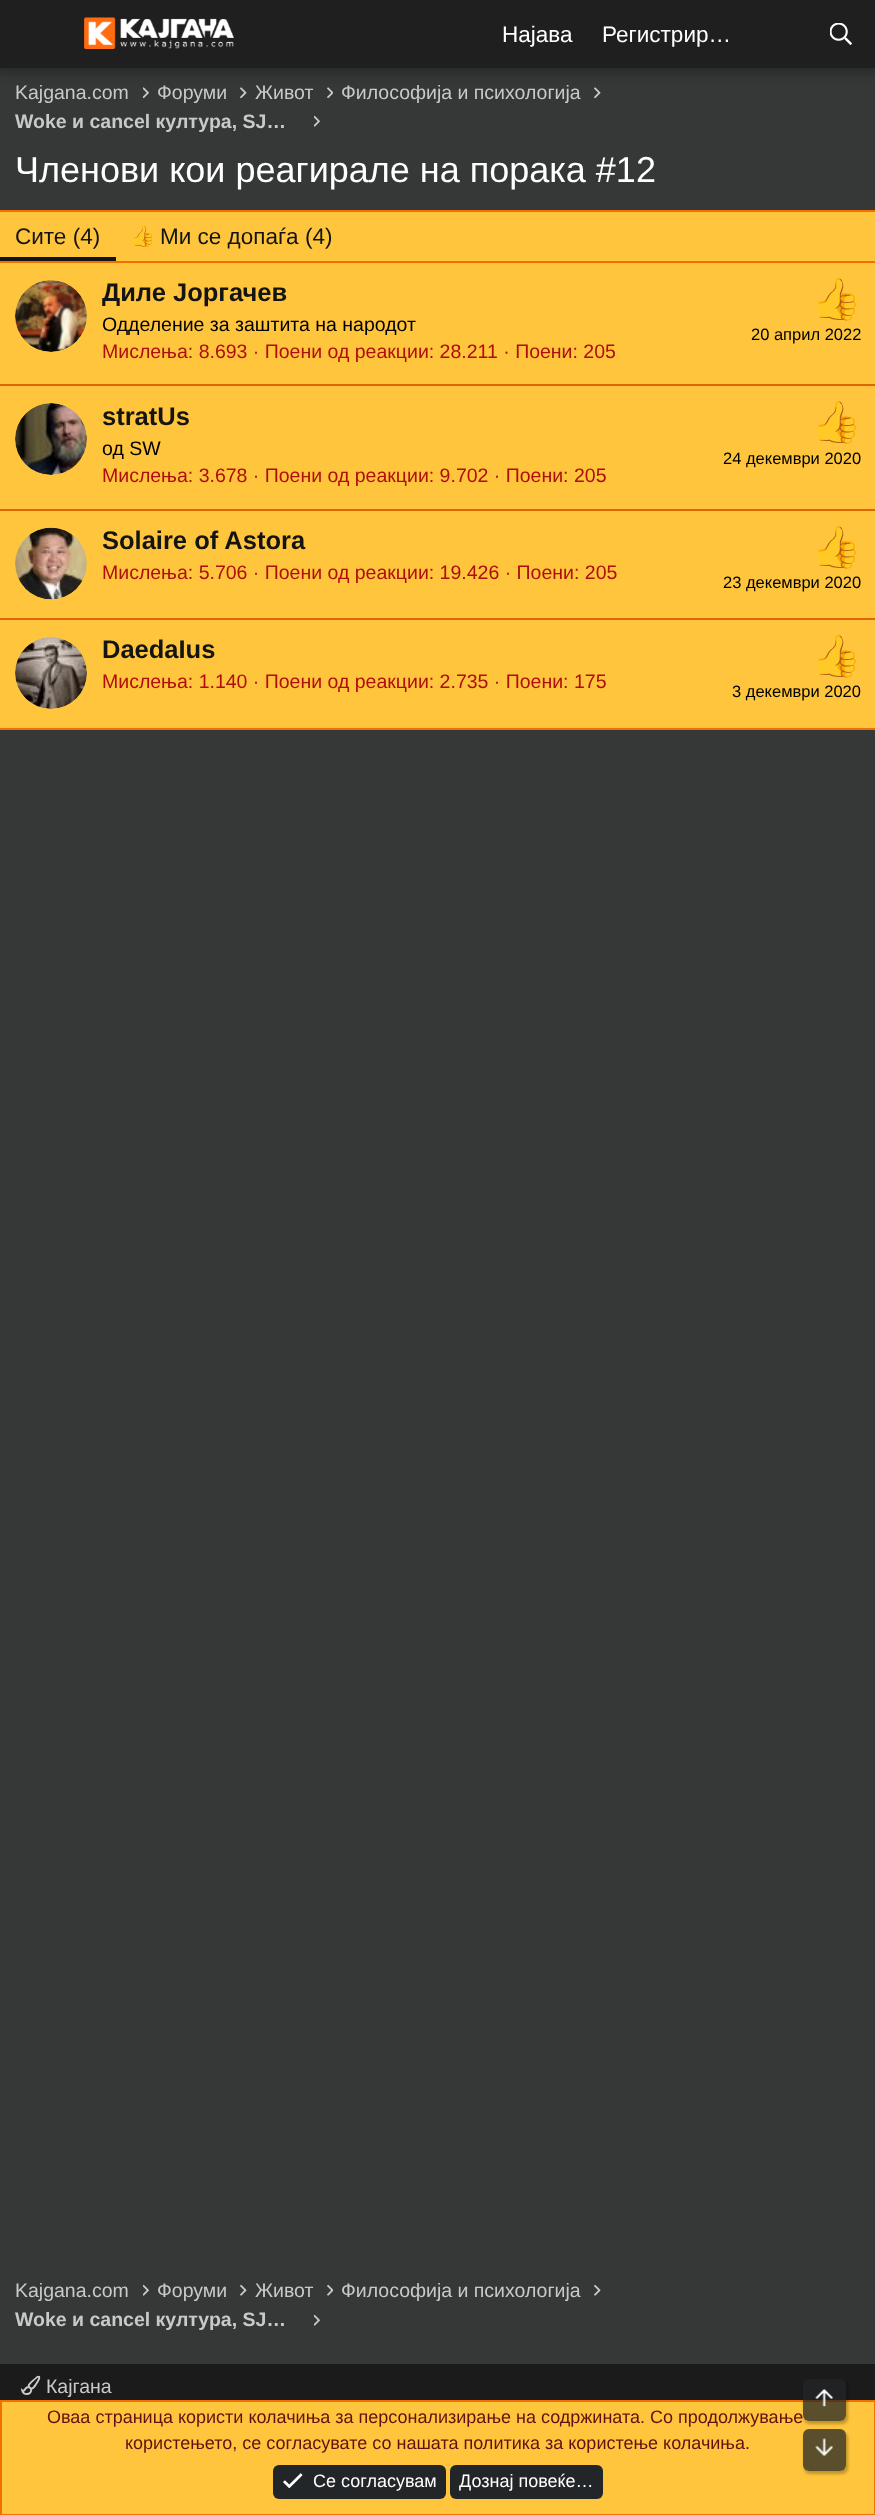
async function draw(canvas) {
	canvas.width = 875;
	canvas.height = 2515;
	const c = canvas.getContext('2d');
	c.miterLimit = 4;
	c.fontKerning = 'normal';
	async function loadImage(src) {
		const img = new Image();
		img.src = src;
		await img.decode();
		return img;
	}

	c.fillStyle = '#363737';
	c.fillRect(0, 0, 875, 2515);
	c.drawImage(await loadImage('img3.png'), 143, 87, 6, 12);
	c.drawImage(await loadImage('img4.png'), 240, 87, 7, 12);
	c.drawImage(await loadImage('img5.png'), 327, 87, 6, 12);
	c.drawImage(await loadImage('img4.png'), 594, 87, 7, 12);
	c.fillStyle = '#0000004d';
	c.filter = 'blur(6px)';
	c.beginPath();
	c.rect(-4, -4, 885, 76);
	c.fill();
	c.filter = 'none';
	c.fillStyle = '#1f1f1f';
	c.fillRect(0, 0, 875, 68);
	c.drawImage(await loadImage('img1.png'), 84, 17, 150, 32);
	c.font = '22.5px Liberation Sans';
	c.fillStyle = '#fff';
	c.fillText('Најава', 502, 42);
	c.fillText('Регистрир…', 602, 42);
	c.drawImage(await loadImage('img2.png'), 830, 23, 22, 22);
	c.font = '19.5px Liberation Sans';
	c.fillStyle = '#c9c9c9';
	for (const [text, x, y] of [
		['Kajgana.com', 15, 99],
		['Форуми', 157, 99],
		['Живот', 255, 99],
		['Философија и психологија', 341, 99],
	]) {
		c.fillText(text, x, y);
	}
	c.font = 'bold 19.5px Liberation Sans';
	c.fillText('Woke и cancel култура, SJ…', 15, 128);
	c.drawImage(await loadImage('img6.png'), 314, 115, 6, 12);
	c.font = '36px Liberation Sans';
	c.fillStyle = '#fff';
	c.fillText('Членови кои реагирале на порака #12', 15, 182);
	for (const [x, y, w, h, color] of [
		[0, 212, 875, 516, '#ffc63d'],
		[0, 210, 875, 2, '#f26f05'],
		[0, 728, 875, 2, '#f26f05'],
		[0, 261, 875, 2, '#f26f05'],
		[0, 257, 116, 4, '#141414'],
	]) {
		c.fillStyle = color;
		c.fillRect(x, y, w, h);
	}
	c.font = '22.5px Liberation Sans';
	c.fillText('Сите (4)', 15, 244);
	c.drawImage(await loadImage('img7.png'), 133, 225, 20, 22);
	c.fillText('Ми се допаѓа (4)', 160, 244);
	c.drawImage(await loadImage('img8.png'), 15, 280, 72, 72);
	c.font = 'bold 25.5px Liberation Sans';
	c.fillText('Диле Јоргачев', 102, 301);
	c.font = '19.5px Liberation Sans';
	c.fillStyle = '#000';
	c.fillText('Одделение за заштита на народот', 102, 331);
	c.drawImage(await loadImage('img9.png'), 818, 278, 38, 43);
	c.font = '16.5px Liberation Sans';
	c.fillText('20 април 2022', 751, 340);
	c.font = '19.5px Liberation Sans';
	c.fillStyle = '#b00d0d';
	c.fillText('Мислења: 8.693 · Поени од реакции: 28.211 · Поени: 205', 102, 358);
	c.fillStyle = '#de6605';
	c.fillRect(0, 384, 875, 2);
	c.drawImage(await loadImage('img10.png'), 15, 403, 72, 72);
	c.font = 'bold 25.5px Liberation Sans';
	c.fillStyle = '#141414';
	c.fillText('stratUs', 102, 425);
	c.font = '19.5px Liberation Sans';
	c.fillStyle = '#000';
	c.fillText('од SW', 102, 455);
	c.drawImage(await loadImage('img9.png'), 818, 401, 38, 43);
	c.font = '16.5px Liberation Sans';
	c.fillText('24 декември 2020', 723, 464);
	c.font = '19.5px Liberation Sans';
	c.fillStyle = '#b00d0d';
	c.fillText('Мислења: 3.678 · Поени од реакции: 9.702 · Поени: 205', 102, 482);
	c.fillStyle = '#de6605';
	c.fillRect(0, 509, 875, 2);
	c.drawImage(await loadImage('img11.png'), 15, 527, 72, 73);
	c.font = 'bold 25.5px Liberation Sans';
	c.fillStyle = '#141414';
	c.fillText('Solaire of Astora', 102, 549);
	c.font = '19.5px Liberation Sans';
	c.fillStyle = '#b00d0d';
	c.fillText('Мислења: 5.706 · Поени од реакции: 19.426 · Поени: 205', 102, 579);
	c.drawImage(await loadImage('img9.png'), 818, 526, 38, 43);
	c.font = '16.5px Liberation Sans';
	c.fillStyle = '#000';
	c.fillText('23 декември 2020', 723, 588);
	c.fillStyle = '#de6605';
	c.fillRect(0, 618, 875, 2);
	c.drawImage(await loadImage('img12.png'), 15, 637, 72, 72);
	c.font = 'bold 25.5px Liberation Sans';
	c.fillStyle = '#141414';
	c.fillText('DaedaIus', 102, 658);
	c.font = '19.5px Liberation Sans';
	c.fillStyle = '#b00d0d';
	c.fillText('Мислења: 1.140 · Поени од реакции: 2.735 · Поени: 175', 102, 688);
	c.drawImage(await loadImage('img9.png'), 818, 635, 38, 43);
	c.font = '16.5px Liberation Sans';
	c.fillStyle = '#000';
	c.fillText('3 декември 2020', 732, 697);
	c.font = '19.5px Liberation Sans';
	c.fillStyle = '#c9c9c9';
	c.fillText('Kajgana.com', 15, 2297);
	c.drawImage(await loadImage('img6.png'), 143, 2284, 6, 12);
	c.fillText('Форуми', 157, 2297);
	c.drawImage(await loadImage('img13.png'), 240, 2284, 7, 12);
	c.fillText('Живот', 255, 2297);
	c.drawImage(await loadImage('img14.png'), 327, 2284, 6, 12);
	c.fillText('Философија и психологија', 341, 2297);
	c.drawImage(await loadImage('img13.png'), 594, 2284, 7, 12);
	c.font = 'bold 19.5px Liberation Sans';
	c.fillText('Woke и cancel култура, SJ…', 15, 2326);
	c.drawImage(await loadImage('img6.png'), 314, 2314, 6, 12);
	c.fillStyle = '#1b1b1b';
	c.fillRect(0, 2364, 875, 36);
	c.drawImage(await loadImage('img15.png'), 21, 2375, 20, 20);
	c.font = '19.5px Liberation Sans';
	c.fillStyle = '#c9c9c9';
	c.fillText('Кајгана', 46, 2393);
	c.fillStyle = '#ffc63d';
	c.beginPath();
	c.rect(1, 2401, 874, 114);
	c.fill();
	c.strokeStyle = '#f26f05';
	c.lineWidth = 2;
	c.stroke();
	c.font = '18px Liberation Sans';
	c.fillStyle = '#621111';
	c.fillText('Оваа страница користи колачиња за персонализирање на содржината. Со продолжување', 47, 2423);
	c.fillText('користењето, се согласувате со нашата политика за користење колачиња.', 125, 2449);
	c.fillStyle = '#232628';
	c.beginPath();
	c.roundRect(273, 2465, 173, 34, 6);
	c.fill();
	c.drawImage(await loadImage('img16.png'), 283, 2473, 20, 16);
	c.fillStyle = '#fff';
	c.fillText('Се согласувам', 313, 2487);
	c.fillStyle = '#232628';
	c.beginPath();
	c.roundRect(450, 2465, 153, 34, 6);
	c.fill();
	c.fillStyle = '#fff';
	c.fillText('Дознај повеќе…', 459, 2487);
	c.save();
	c.beginPath();
	c.moveTo(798, 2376);
	c.lineTo(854, 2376);
	c.lineTo(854, 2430);
	c.lineTo(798, 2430);
	c.closePath();
	c.moveTo(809, 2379);
	c.lineTo(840, 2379);
	c.bezierCurveTo(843.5, 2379, 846, 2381.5, 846, 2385);
	c.lineTo(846, 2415);
	c.bezierCurveTo(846, 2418.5, 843.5, 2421, 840, 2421);
	c.lineTo(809, 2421);
	c.bezierCurveTo(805.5, 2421, 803, 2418.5, 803, 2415);
	c.lineTo(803, 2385);
	c.bezierCurveTo(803, 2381.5, 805.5, 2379, 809, 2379);
	c.closePath();
	c.clip('evenodd');
	c.fillStyle = '#00000040';
	c.filter = 'blur(1.5px)';
	c.beginPath();
	c.roundRect(804, 2382, 44, 42, 6);
	c.fill();
	c.filter = 'none';
	c.restore();
	c.fillStyle = '#232628bf';
	c.beginPath();
	c.roundRect(803, 2379, 43, 42, 6);
	c.fill();
	c.drawImage(await loadImage('img17.png'), 815, 2389, 19, 18);
	c.save();
	c.beginPath();
	c.moveTo(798, 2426);
	c.lineTo(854, 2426);
	c.lineTo(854, 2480);
	c.lineTo(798, 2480);
	c.closePath();
	c.moveTo(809, 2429);
	c.lineTo(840, 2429);
	c.bezierCurveTo(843.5, 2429, 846, 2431.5, 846, 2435);
	c.lineTo(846, 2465);
	c.bezierCurveTo(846, 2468.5, 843.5, 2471, 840, 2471);
	c.lineTo(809, 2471);
	c.bezierCurveTo(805.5, 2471, 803, 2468.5, 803, 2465);
	c.lineTo(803, 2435);
	c.bezierCurveTo(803, 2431.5, 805.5, 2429, 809, 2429);
	c.closePath();
	c.clip('evenodd');
	c.fillStyle = '#00000040';
	c.filter = 'blur(1.5px)';
	c.beginPath();
	c.roundRect(804, 2432, 44, 42, 6);
	c.fill();
	c.filter = 'none';
	c.restore();
	c.beginPath();
	c.roundRect(803, 2429, 43, 42, 6);
	c.fill();
	c.drawImage(await loadImage('img18.png'), 815, 2438, 18, 19);
}

draw(document.querySelector('canvas'));
